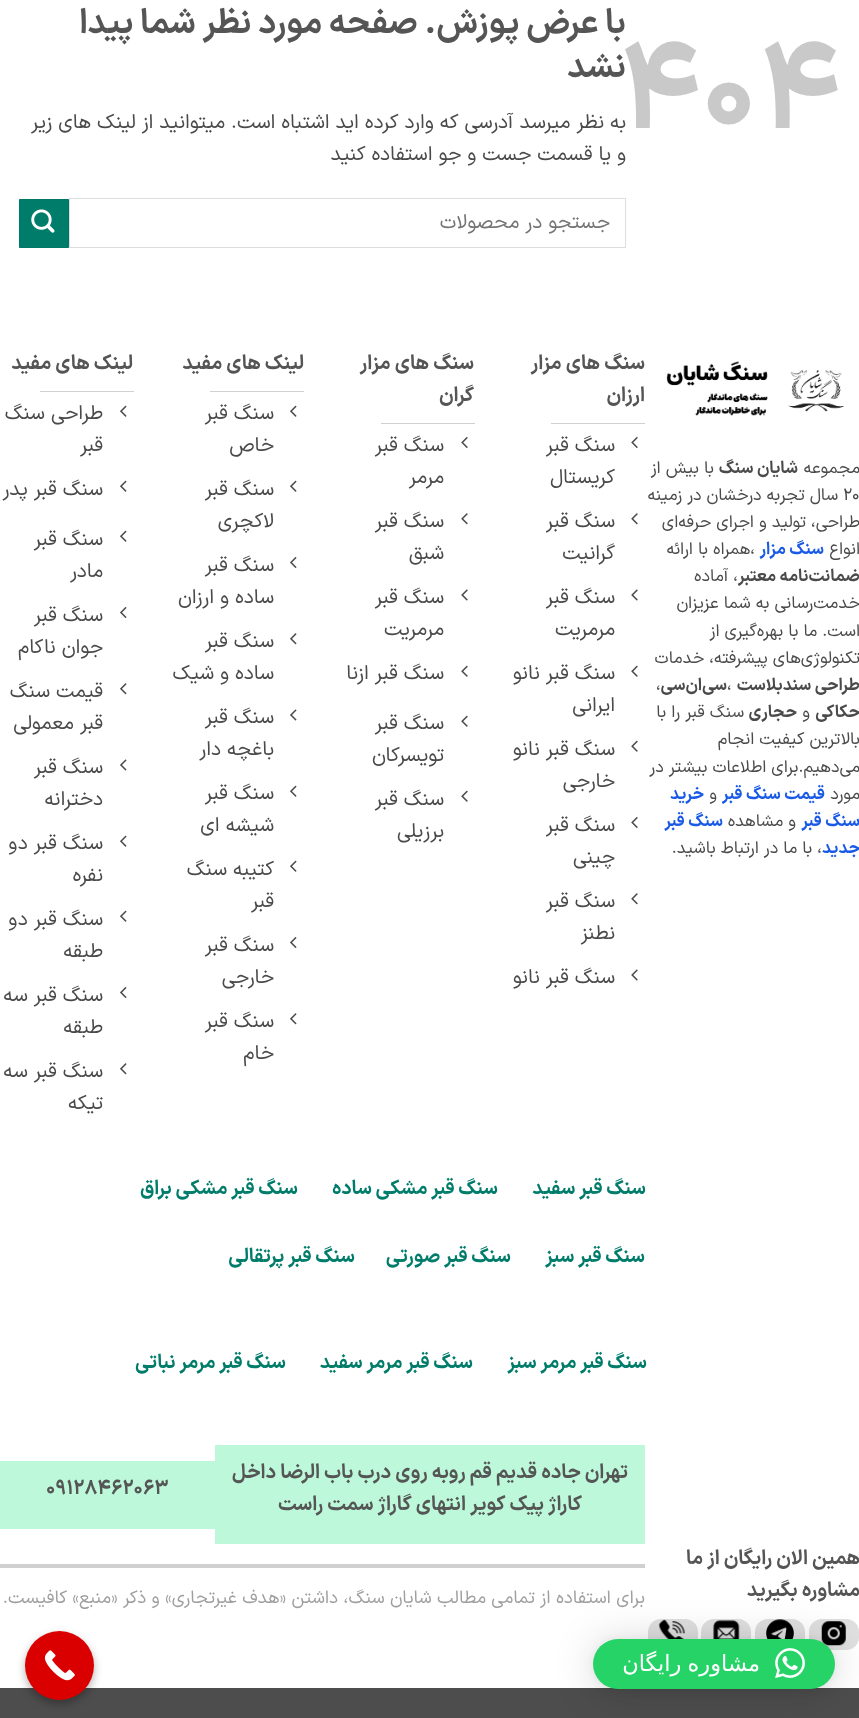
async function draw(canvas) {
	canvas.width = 859;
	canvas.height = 1718;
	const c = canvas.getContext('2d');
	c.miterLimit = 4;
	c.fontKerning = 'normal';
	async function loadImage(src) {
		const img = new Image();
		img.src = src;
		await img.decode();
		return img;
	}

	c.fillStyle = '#fff';
	c.fillRect(0, 0, 859, 1718);
	c.font = 'bold 120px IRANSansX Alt';
	c.fillStyle = '#c9c9c9';
	c.fillText('404', 619, 128);
	c.wordSpacing = '-0.25px';
	c.direction = 'rtl';
	c.font = 'bold 34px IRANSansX';
	c.fillStyle = '#555';
	c.fillText('با عرض پوزش. صفحه مورد نظر شما پیدا', 626, 33);
	c.wordSpacing = '0px';
	c.fillText('نشد', 626, 77);
	c.font = '20px IRANSansX';
	c.fillStyle = '#4a4a4a';
	c.fillText('به نظر میرسد آدرسی که وارد کرده اید اشتباه است. میتوانید از لینک های زیر', 626, 128);
	c.fillText('و یا قسمت جست و جو استفاده کنید', 626, 160);
	c.strokeStyle = '#ddd';
	c.strokeRect(69.5, 198.5, 556, 49);
	c.fillStyle = '#757575';
	c.fillText('جستجو در محصولات', 610, 228);
	c.fillStyle = '#007c6a';
	c.beginPath();
	c.rect(19.5, 199.5, 49, 48);
	c.fill();
	c.strokeStyle = '#007665';
	c.stroke();
	c.drawImage(await loadImage('img1.png'), 31, 209, 24, 24);
	c.drawImage(await loadImage('img2.png'), 666, 361, 178, 55);
	c.font = '17px IRANSansX';
	c.fillStyle = '#4a4a4a';
	c.fillText('مجموعه', 860, 473);
	c.font = 'bold 17px IRANSansX';
	c.fillText('شایان سنگ', 798, 473);
	c.font = '17px IRANSansX';
	c.fillText('با بیش از', 714, 473);
	c.direction = 'ltr';
	c.fillText('۲۰', 843, 500);
	c.direction = 'rtl';
	for (const [text, x, y] of [
		['سال تجربه درخشان در زمینه', 838, 500],
		['طراحی، تولید و اجرای حرفه‌ای', 860, 527],
		['انواع', 860, 554],
	]) {
		c.fillText(text, x, y);
	}
	c.font = 'bold 17px IRANSansX';
	c.fillStyle = '#1859e6';
	c.fillText('سنگ مزار', 824, 554);
	c.font = '17px IRANSansX';
	c.fillStyle = '#4a4a4a';
	c.fillText('،همراه با ارائه', 755, 554);
	c.font = 'bold 17px IRANSansX';
	c.fillText('ضمانت‌نامه معتبر', 860, 581);
	c.font = '17px IRANSansX';
	for (const [text, x, y] of [
		['، آماده', 738, 581],
		['خدمت‌رسانی به شما عزیزان', 860, 608],
		['است. ما با بهره‌گیری از', 860, 636],
		['تکنولوژی‌های پیشرفته، خدمات', 860, 663],
	]) {
		c.fillText(text, x, y);
	}
	c.font = 'bold 17px IRANSansX';
	c.fillText('طراحی سندبلاست', 860, 690);
	c.direction = 'ltr';
	c.font = '17px IRANSansX';
	c.fillText('،', 727, 690);
	c.direction = 'rtl';
	c.font = 'bold 17px IRANSansX';
	c.fillText('سی‌ان‌سی', 727, 690);
	c.direction = 'ltr';
	c.font = '17px IRANSansX';
	c.fillText('،', 656, 690);
	c.direction = 'rtl';
	c.font = 'bold 17px IRANSansX';
	c.fillText('حکاکی', 860, 717);
	c.font = '17px IRANSansX';
	c.fillText('و', 810, 717);
	c.font = 'bold 17px IRANSansX';
	c.fillText('حجاری', 797, 717);
	c.font = '17px IRANSansX';
	for (const [text, x, y] of [
		['سنگ قبر را با', 744, 717],
		['بالاترین کیفیت انجام', 860, 744],
		['می‌دهیم.برای اطلاعات بیشتر در', 860, 772],
		['مورد', 860, 799],
	]) {
		c.fillText(text, x, y);
	}
	c.font = 'bold 17px IRANSansX';
	c.fillStyle = '#1859e6';
	c.fillText('قیمت سنگ قبر', 825, 799);
	c.font = '17px IRANSansX';
	c.fillStyle = '#4a4a4a';
	c.fillText('و', 717, 799);
	c.font = 'bold 17px IRANSansX';
	c.fillStyle = '#1859e6';
	c.fillText('خرید', 704, 799);
	c.fillText('سنگ قبر', 860, 826);
	c.font = '17px IRANSansX';
	c.fillStyle = '#4a4a4a';
	c.fillText('و مشاهده', 796, 826);
	c.font = 'bold 17px IRANSansX';
	c.fillStyle = '#1859e6';
	c.fillText('سنگ قبر', 723, 826);
	c.fillText('جدید', 860, 853);
	c.font = '17px IRANSansX';
	c.fillStyle = '#4a4a4a';
	c.fillText('، با ما در ارتباط باشید.', 822, 853);
	c.font = 'bold 20px IRANSansX';
	c.fillStyle = '#555';
	c.fillText('سنگ های مزار', 645, 369);
	c.fillText('ارزان', 645, 401);
	c.fillStyle = '#d0d0d0';
	c.fillRect(551, 423, 94, 1);
	c.drawImage(await loadImage('img3.png'), 631, 437, 7, 11);
	c.font = '20px IRANSansX';
	c.fillStyle = '#4a4a4a';
	c.fillText('سنگ قبر', 615, 451);
	c.fillText('کریستال', 615, 483);
	c.drawImage(await loadImage('img4.png'), 631, 513, 7, 12);
	c.fillText('سنگ قبر', 615, 527);
	c.fillText('گرانیت', 615, 559);
	c.drawImage(await loadImage('img5.png'), 631, 589, 7, 12);
	c.fillText('سنگ قبر', 615, 603);
	c.fillText('مرمریت', 615, 635);
	c.drawImage(await loadImage('img6.png'), 631, 665, 7, 12);
	c.fillText('سنگ قبر نانو', 615, 679);
	c.fillText('ایرانی', 615, 711);
	c.drawImage(await loadImage('img6.png'), 631, 740, 7, 12);
	c.fillText('سنگ قبر نانو', 615, 755);
	c.fillText('خارجی', 615, 787);
	c.drawImage(await loadImage('img3.png'), 631, 817, 7, 11);
	c.fillText('سنگ قبر', 615, 831);
	c.fillText('چینی', 615, 863);
	c.drawImage(await loadImage('img4.png'), 631, 893, 7, 12);
	c.fillText('سنگ قبر', 615, 907);
	c.fillText('نطنز', 615, 939);
	c.drawImage(await loadImage('img5.png'), 631, 969, 7, 12);
	c.fillText('سنگ قبر نانو', 615, 983);
	c.font = 'bold 20px IRANSansX';
	c.fillStyle = '#555';
	c.fillText('سنگ های مزار', 474, 369);
	c.fillText('گران', 474, 401);
	c.fillStyle = '#d0d0d0';
	c.fillRect(381, 423, 94, 1);
	c.drawImage(await loadImage('img3.png'), 461, 437, 7, 11);
	c.font = '20px IRANSansX';
	c.fillStyle = '#4a4a4a';
	c.fillText('سنگ قبر', 444, 451);
	c.fillText('مرمر', 444, 483);
	c.drawImage(await loadImage('img4.png'), 461, 513, 7, 12);
	c.fillText('سنگ قبر', 444, 527);
	c.fillText('شبق', 444, 559);
	c.drawImage(await loadImage('img5.png'), 461, 589, 7, 12);
	c.fillText('سنگ قبر', 444, 603);
	c.fillText('مرمریت', 444, 635);
	c.drawImage(await loadImage('img6.png'), 461, 665, 7, 12);
	c.fillText('سنگ قبر ازنا', 444, 679);
	c.drawImage(await loadImage('img6.png'), 461, 715, 7, 12);
	c.fillText('سنگ قبر', 444, 729);
	c.fillText('تویسرکان', 444, 761);
	c.drawImage(await loadImage('img6.png'), 461, 790, 7, 12);
	c.fillText('سنگ قبر', 444, 805);
	c.fillText('برزیلی', 444, 837);
	c.font = 'bold 20px IRANSansX';
	c.fillStyle = '#555';
	c.fillText('لینک های مفید', 304, 369);
	c.fillStyle = '#d0d0d0';
	c.fillRect(210, 391, 94, 1);
	c.drawImage(await loadImage('img7.png'), 290, 405, 7, 12);
	c.font = '20px IRANSansX';
	c.fillStyle = '#4a4a4a';
	c.fillText('سنگ قبر', 274, 419);
	c.fillText('خاص', 274, 451);
	c.drawImage(await loadImage('img7.png'), 290, 480, 7, 12);
	c.fillText('سنگ قبر', 274, 495);
	c.fillText('لاکچری', 274, 527);
	c.drawImage(await loadImage('img8.png'), 290, 557, 7, 11);
	c.fillText('سنگ قبر', 274, 571);
	c.fillText('ساده و ارزان', 274, 603);
	c.drawImage(await loadImage('img9.png'), 290, 633, 7, 12);
	c.fillText('سنگ قبر', 274, 647);
	c.fillText('ساده و شیک', 274, 679);
	c.drawImage(await loadImage('img10.png'), 290, 709, 7, 12);
	c.fillText('سنگ قبر', 274, 723);
	c.fillText('باغچه دار', 274, 755);
	c.drawImage(await loadImage('img7.png'), 290, 785, 7, 12);
	c.fillText('سنگ قبر', 274, 799);
	c.fillText('شیشه ای', 274, 831);
	c.drawImage(await loadImage('img7.png'), 290, 860, 7, 12);
	c.fillText('کتیبه سنگ', 274, 875);
	c.fillText('قبر', 274, 907);
	c.drawImage(await loadImage('img8.png'), 290, 937, 7, 11);
	c.fillText('سنگ قبر', 274, 951);
	c.fillText('خارجی', 274, 983);
	c.drawImage(await loadImage('img9.png'), 290, 1013, 7, 12);
	c.fillText('سنگ قبر', 274, 1027);
	c.fillText('خام', 274, 1059);
	c.font = 'bold 20px IRANSansX';
	c.fillStyle = '#555';
	c.fillText('لینک های مفید', 133, 369);
	c.fillStyle = '#d0d0d0';
	c.fillRect(40, 391, 94, 1);
	c.drawImage(await loadImage('img7.png'), 120, 405, 7, 12);
	c.font = '20px IRANSansX';
	c.fillStyle = '#4a4a4a';
	c.fillText('طراحی سنگ', 103, 419);
	c.fillText('قبر', 103, 451);
	c.drawImage(await loadImage('img7.png'), 120, 480, 7, 12);
	c.fillText('سنگ قبر پدر', 103, 495);
	c.drawImage(await loadImage('img7.png'), 120, 530, 7, 12);
	c.fillText('سنگ قبر', 103, 545);
	c.fillText('مادر', 103, 577);
	c.drawImage(await loadImage('img8.png'), 120, 607, 7, 11);
	c.fillText('سنگ قبر', 103, 621);
	c.fillText('جوان ناکام', 103, 653);
	c.drawImage(await loadImage('img9.png'), 120, 683, 7, 12);
	c.fillText('قیمت سنگ', 103, 697);
	c.fillText('قبر معمولی', 103, 729);
	c.drawImage(await loadImage('img10.png'), 120, 759, 7, 12);
	c.fillText('سنگ قبر', 103, 773);
	c.fillText('دخترانه', 103, 805);
	c.drawImage(await loadImage('img7.png'), 120, 835, 7, 12);
	c.fillText('سنگ قبر دو', 103, 849);
	c.fillText('نفره', 103, 881);
	c.drawImage(await loadImage('img7.png'), 120, 910, 7, 12);
	c.fillText('سنگ قبر دو', 103, 925);
	c.fillText('طبقه', 103, 957);
	c.drawImage(await loadImage('img8.png'), 120, 987, 7, 11);
	c.fillText('سنگ قبر سه', 103, 1001);
	c.fillText('طبقه', 103, 1033);
	c.drawImage(await loadImage('img9.png'), 120, 1063, 7, 12);
	c.fillText('سنگ قبر سه', 103, 1077);
	c.fillText('تیکه', 103, 1109);
	c.letterSpacing = '0.6px';
	c.wordSpacing = '-1px';
	c.font = 'bold 19.5px IRANSansX';
	c.fillStyle = '#007c6a';
	for (const [text, x, y] of [
		['سنگ قبر سفید', 646, 1194],
		['سنگ قبر مشکی ساده', 498, 1194],
		['سنگ قبر مشکی براق', 298, 1194],
		['سنگ قبر سبز', 645, 1262],
		['سنگ قبر صورتی', 511, 1262],
		['سنگ قبر پرتقالی', 355, 1262],
		['سنگ قبر مرمر سبز', 647, 1368],
		['سنگ قبر مرمر سفید', 473, 1368],
		['سنگ قبر مرمر نباتی', 286, 1368],
	]) {
		c.fillText(text, x, y);
	}
	c.fillStyle = '#bcf8d9';
	c.fillRect(215, 1445, 430, 99);
	c.letterSpacing = '0px';
	c.wordSpacing = '0px';
	c.font = 'bold 20px IRANSansX';
	c.fillStyle = '#555';
	c.fillText('تهران جاده قدیم قم روبه روی درب باب الرضا داخل', 628, 1478);
	c.fillText('کاراژ پیک کویر انتهای گاراژ سمت راست', 582, 1510);
	c.fillStyle = '#bcf8d9';
	c.fillRect(0, 1461, 215, 68);
	c.direction = 'ltr';
	c.font = 'bold 20px IRANSansX Alt';
	c.fillStyle = '#555';
	c.fillText('09128462063', 46, 1494);
	c.direction = 'rtl';
	c.font = 'bold 20px IRANSansX';
	c.fillText('همین الان رایگان از ما', 860, 1564);
	c.fillText('مشاوره بگیرید', 860, 1596);
	c.fillStyle = '#dfdfdf';
	c.beginPath();
	c.roundRect(809, 1619, 50, 31, 13);
	c.fill();
	c.drawImage(await loadImage('img11.png'), 821, 1621, 25, 25);
	c.beginPath();
	c.roundRect(755, 1619, 50, 31, 13);
	c.fill();
	c.drawImage(await loadImage('img12.png'), 766, 1619, 28, 20);
	c.beginPath();
	c.roundRect(701, 1619, 50, 31, 13);
	c.fill();
	c.drawImage(await loadImage('img13.png'), 713, 1620, 27, 19);
	c.beginPath();
	c.roundRect(648, 1619, 50, 31, 13);
	c.fill();
	c.drawImage(await loadImage('img14.png'), 658, 1619, 27, 20);
	c.fillStyle = '#d0d0d0';
	c.fillRect(0, 1564, 645, 4);
	c.font = '18px IRANSansX';
	c.fillStyle = '#9f9f9f';
	c.fillText('برای استفاده از تمامی مطالب شایان سنگ، داشتن «هدف غیرتجاری» و ذکر «منبع» کافیست.', 645, 1603);
	c.fillStyle = '#4d4d4d';
	c.fillRect(0, 1688, 859, 30);
	c.fillStyle = '#00000029';
	c.filter = 'blur(20px)';
	c.beginPath();
	c.roundRect(593, 1641, 242, 50, 25);
	c.fill();
	c.filter = 'none';
	c.fillStyle = '#0000000f';
	c.filter = 'blur(4px)';
	c.beginPath();
	c.roundRect(593, 1640, 242, 50, 25);
	c.fill();
	c.filter = 'none';
	c.fillStyle = '#25d366';
	c.beginPath();
	c.roundRect(593, 1639, 242, 50, 25);
	c.fill();
	c.drawImage(await loadImage('img15.png'), 775, 1648, 30, 31);
	c.wordSpacing = '-1px';
	c.font = '22.5px DejaVu Sans';
	c.fillStyle = '#fff';
	c.fillText('مشاوره رایگان', 760, 1671);
	c.fillStyle = '#0000004d';
	c.filter = 'blur(4px)';
	c.beginPath();
	c.roundRect(25, 1635, 69, 69, 34.5);
	c.fill();
	c.filter = 'none';
	c.fillStyle = '#db0000';
	c.beginPath();
	c.arc(59.5, 1665.5, 34.5, 0, 2 * Math.PI);
	c.fill();
	c.drawImage(await loadImage('img16.png'), 44, 1650, 31, 31);
}

draw(document.querySelector('canvas'));
